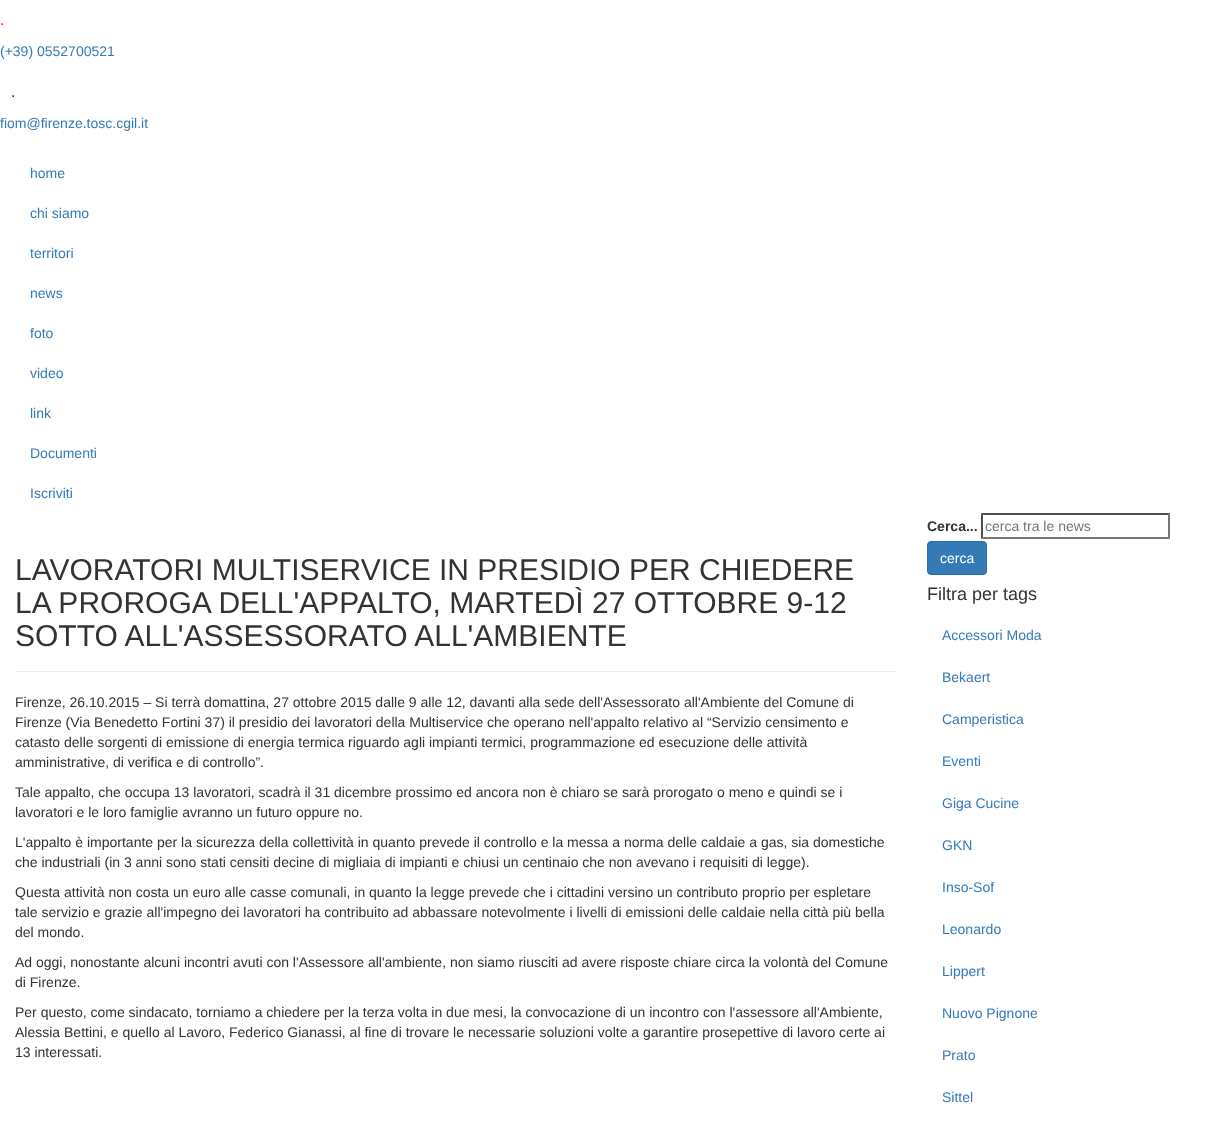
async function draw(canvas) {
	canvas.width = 1216;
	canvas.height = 1141;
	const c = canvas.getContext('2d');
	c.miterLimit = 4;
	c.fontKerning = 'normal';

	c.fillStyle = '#fff';
	c.fillRect(0, 0, 1216, 1141);
	c.font = '16px Liberation Sans';
	c.fillStyle = '#ed1d2c';
	c.fillText('.', 0, 25);
	c.font = '14px Liberation Sans';
	c.fillStyle = '#337ab7';
	c.fillText('(+39) 0552700521', 0, 56);
	c.font = '16px Liberation Sans';
	c.fillStyle = '#333';
	c.fillText('.', 11, 97);
	c.font = '14px Liberation Sans';
	c.fillStyle = '#337ab7';
	for (const [text, x, y] of [
		['fiom@firenze.tosc.cgil.it', 0, 128],
		['home', 30, 178],
		['chi siamo', 30, 218],
		['territori', 30, 258],
		['news', 30, 298],
		['foto', 30, 338],
		['video', 30, 378],
		['link', 30, 418],
		['Documenti', 30, 458],
		['Iscriviti', 30, 498],
	]) {
		c.fillText(text, x, y);
	}
	c.fillStyle = '#eee';
	c.fillRect(15, 671, 882, 1);
	c.font = '30px Liberation Sans';
	c.fillStyle = '#333';
	for (const [text, x, y] of [
		['LAVORATORI MULTISERVICE IN PRESIDIO PER CHIEDERE', 15, 580],
		['LA PROROGA DELL\'APPALTO, MARTEDÌ 27 OTTOBRE 9-12', 15, 613],
		['SOTTO ALL\'ASSESSORATO ALL\'AMBIENTE', 15, 646],
	]) {
		c.fillText(text, x, y);
	}
	c.font = '14px Liberation Sans';
	for (const [text, x, y] of [
		['Firenze, 26.10.2015 – Si terrà domattina, 27 ottobre 2015 dalle 9 alle 12, davanti alla sede dell\'Assessorato all\'Ambiente del Comune di', 15, 707],
		['Firenze (Via Benedetto Fortini 37) il presidio dei lavoratori della Multiservice che operano nell\'appalto relativo al “Servizio censimento e', 15, 727],
		['catasto delle sorgenti di emissione di energia termica riguardo agli impianti termici, programmazione ed esecuzione delle attività', 15, 747],
		['amministrative, di verifica e di controllo”.', 15, 767],
		['Tale appalto, che occupa 13 lavoratori, scadrà il 31 dicembre prossimo ed ancora non è chiaro se sarà prorogato o meno e quindi se i', 15, 797],
		['lavoratori e le loro famiglie avranno un futuro oppure no.', 15, 817],
		['L\'appalto è importante per la sicurezza della collettività in quanto prevede il controllo e la messa a norma delle caldaie a gas, sia domestiche', 15, 847],
		['che industriali (in 3 anni sono stati censiti decine di migliaia di impianti e chiusi un centinaio che non avevano i requisiti di legge).', 15, 867],
		['Questa attività non costa un euro alle casse comunali, in quanto la legge prevede che i cittadini versino un contributo proprio per espletare', 15, 897],
		['tale servizio e grazie all\'impegno dei lavoratori ha contribuito ad abbassare notevolmente i livelli di emissioni delle caldaie nella città più bella', 15, 917],
		['del mondo.', 15, 937],
		['Ad oggi, nonostante alcuni incontri avuti con l\'Assessore all\'ambiente, non siamo riusciti ad avere risposte chiare circa la volontà del Comune', 15, 967],
		['di Firenze.', 15, 987],
		['Per questo, come sindacato, torniamo a chiedere per la terza volta in due mesi, la convocazione di un incontro con l\'assessore all\'Ambiente,', 15, 1017],
		['Alessia Bettini, e quello al Lavoro, Federico Gianassi, al fine di trovare le necessarie soluzioni volte a garantire prosepettive di lavoro certe ai', 15, 1037],
		['13 interessati.', 15, 1057],
	]) {
		c.fillText(text, x, y);
	}
	c.font = 'bold 14px Liberation Sans';
	c.fillText('Cerca...', 927, 531);
	c.fillStyle = '#4f4f4f';
	c.beginPath();
	c.moveTo(981, 513);
	c.lineTo(1170, 513);
	c.lineTo(1168, 515);
	c.lineTo(983, 515);
	c.closePath();
	c.fill();
	c.fillStyle = '#767676';
	c.beginPath();
	c.moveTo(1170, 513);
	c.lineTo(1170, 539);
	c.lineTo(1168, 537);
	c.lineTo(1168, 515);
	c.closePath();
	c.fill();
	c.beginPath();
	c.moveTo(1170, 539);
	c.lineTo(981, 539);
	c.lineTo(983, 537);
	c.lineTo(1168, 537);
	c.closePath();
	c.fill();
	c.fillStyle = '#4f4f4f';
	c.beginPath();
	c.moveTo(981, 539);
	c.lineTo(981, 513);
	c.lineTo(983, 515);
	c.lineTo(983, 537);
	c.closePath();
	c.fill();
	c.font = '14px Liberation Sans';
	c.fillStyle = '#757575';
	c.fillText('cerca tra le news', 985, 531);
	c.fillStyle = '#337ab7';
	c.beginPath();
	c.roundRect(927.5, 541.5, 59, 33, 3.5);
	c.fill();
	c.strokeStyle = '#2e6da4';
	c.stroke();
	c.fillStyle = '#fff';
	c.fillText('cerca', 940, 563);
	c.font = '18px Liberation Sans';
	c.fillStyle = '#333';
	c.fillText('Filtra per tags', 927, 600);
	c.font = '14px Liberation Sans';
	c.fillStyle = '#337ab7';
	for (const [text, x, y] of [
		['Accessori Moda', 942, 640],
		['Bekaert', 942, 682],
		['Camperistica', 942, 724],
		['Eventi', 942, 766],
		['Giga Cucine', 942, 808],
		['GKN', 942, 850],
		['Inso-Sof', 942, 892],
		['Leonardo', 942, 934],
		['Lippert', 942, 976],
		['Nuovo Pignone', 942, 1018],
		['Prato', 942, 1060],
		['Sittel', 942, 1102],
	]) {
		c.fillText(text, x, y);
	}
}

draw(document.querySelector('canvas'));
